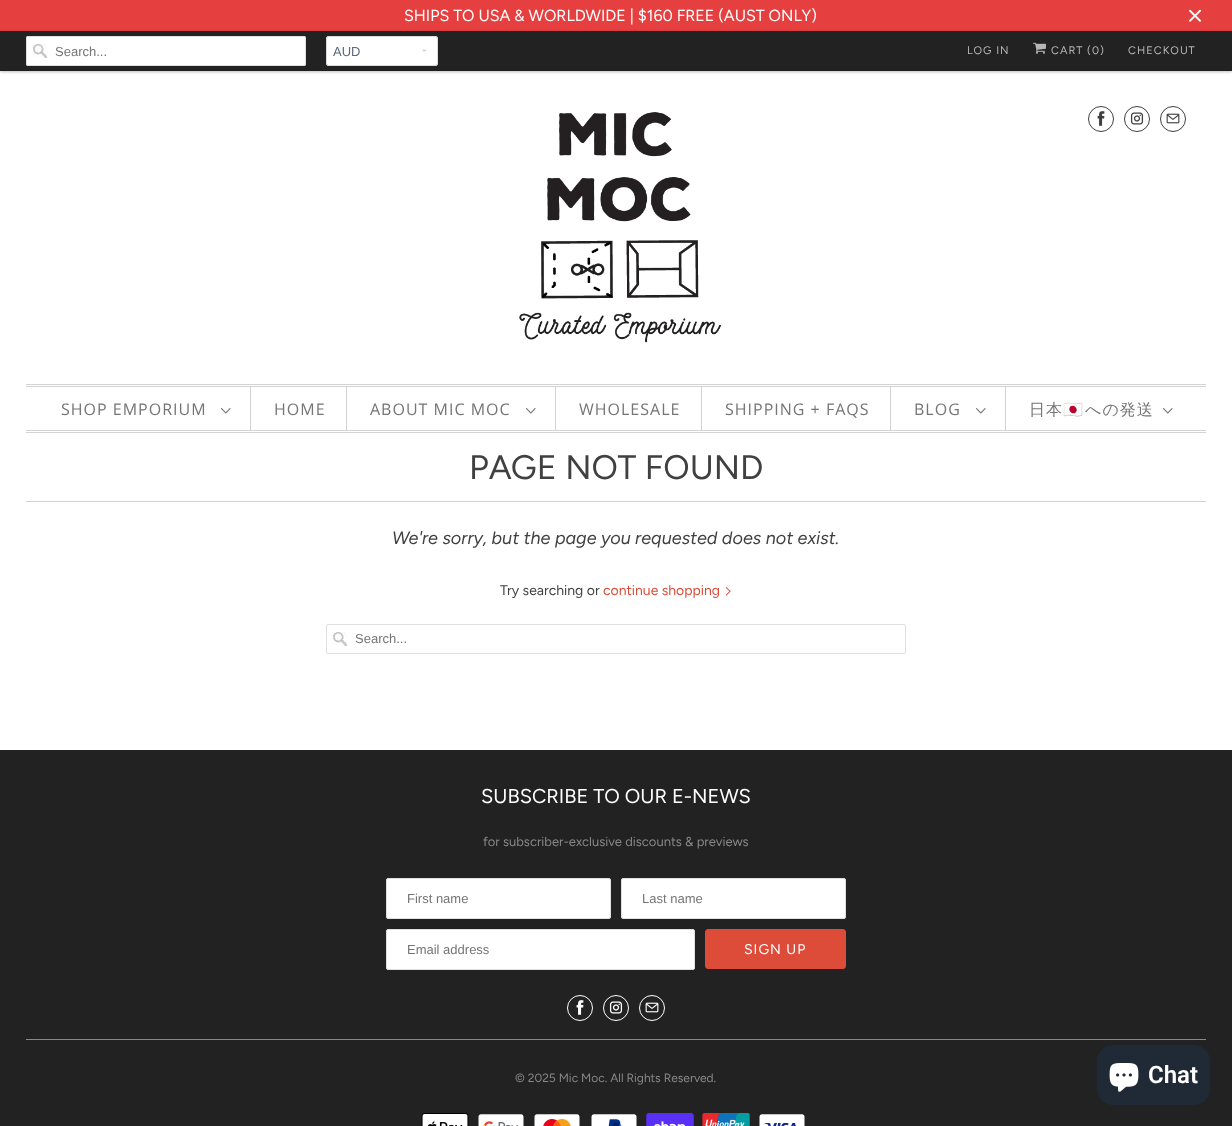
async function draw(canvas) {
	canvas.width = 1232;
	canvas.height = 1126;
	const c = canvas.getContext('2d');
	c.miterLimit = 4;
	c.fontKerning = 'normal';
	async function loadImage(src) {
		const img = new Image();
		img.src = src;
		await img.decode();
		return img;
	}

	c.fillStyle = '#fff';
	c.fillRect(0, 0, 1232, 1126);
	c.fillStyle = '#e53f3f';
	c.fillRect(0, 0, 1232, 31);
	c.font = '16px Figtree';
	c.fillStyle = '#fff';
	c.fillText('SHIPS TO USA & WORLDWIDE | $160 FREE (AUST ONLY)', 404, 21);
	c.drawImage(await loadImage('img1.png'), 1189, 9, 12, 13);
	c.fillStyle = '#00000040';
	c.filter = 'blur(1.5px)';
	c.beginPath();
	c.rect(0, 32, 1232, 40);
	c.fill();
	c.filter = 'none';
	c.fillStyle = '#222';
	c.fillRect(0, 31, 1232, 39);
	c.fillStyle = '#1f1f1f';
	c.fillRect(0, 70, 1232, 1);
	c.fillStyle = '#fff';
	c.beginPath();
	c.roundRect(26, 36, 280, 30, 2);
	c.fill();
	c.drawImage(await loadImage('img2.png'), 33, 44, 14, 14);
	c.beginPath();
	c.roundRect(26.5, 36.5, 279, 29, 1.5);
	c.strokeStyle = '#dfdfdf';
	c.stroke();
	c.font = '13px Liberation Sans';
	c.fillStyle = '#757575';
	c.fillText('Search...', 55, 56);
	c.fillStyle = '#fff';
	c.beginPath();
	c.roundRect(326, 36, 112, 30, 3);
	c.fill();
	c.drawImage(await loadImage('img3.png'), 422, 49, 5, 3);
	c.beginPath();
	c.roundRect(326.5, 36.5, 111, 29, 2.5);
	c.strokeStyle = '#d9dbdc';
	c.stroke();
	c.fillStyle = '#5f6a7d';
	c.fillText('AUD', 333, 56);
	c.letterSpacing = '1px';
	c.font = '11px Figtree';
	c.fillStyle = '#b6b6b6';
	c.fillText('LOG IN', 967, 54);
	c.drawImage(await loadImage('img4.png'), 1033, 42, 13, 12);
	c.fillText('CART (0)', 1051, 54);
	c.fillText('CHECKOUT', 1128, 54);
	c.drawImage(await loadImage('img5.png'), 519, 112, 202, 231);
	c.beginPath();
	c.arc(1101, 119, 12.5, 0, 2 * Math.PI);
	c.strokeStyle = '#404040';
	c.stroke();
	c.drawImage(await loadImage('img6.png'), 1097, 111, 8, 15);
	c.beginPath();
	c.arc(1137, 119, 12.5, 0, 2 * Math.PI);
	c.stroke();
	c.drawImage(await loadImage('img7.png'), 1130, 112, 14, 13);
	c.beginPath();
	c.arc(1173, 119, 12.5, 0, 2 * Math.PI);
	c.stroke();
	c.drawImage(await loadImage('img8.png'), 1166, 113, 14, 11);
	for (const [x, y, w, h, color] of [
		[26, 384, 1180, 1, '#d3d3d3'],
		[26, 386, 1180, 1, '#d3d3d3'],
		[26, 430, 1180, 1, '#d3d3d3'],
		[26, 432, 1180, 1, '#d3d3d3'],
		[250, 387, 1, 43, '#d3d3d3'],
	]) {
		c.fillStyle = color;
		c.fillRect(x, y, w, h);
	}
	c.font = '16px Open Sans';
	c.fillStyle = '#757575';
	c.fillText('SHOP EMPORIUM', 61, 415);
	c.drawImage(await loadImage('img9.png'), 221, 408, 10, 6);
	c.fillStyle = '#d3d3d3';
	c.fillRect(346, 387, 1, 43);
	c.fillStyle = '#757575';
	c.fillText('HOME', 274, 415);
	c.fillStyle = '#d3d3d3';
	c.fillRect(555, 387, 1, 43);
	c.fillStyle = '#757575';
	c.fillText('ABOUT MIC MOC', 370, 415);
	c.drawImage(await loadImage('img9.png'), 526, 408, 10, 6);
	c.fillStyle = '#d3d3d3';
	c.fillRect(701, 387, 1, 43);
	c.fillStyle = '#757575';
	c.fillText('WHOLESALE', 579, 415);
	c.fillStyle = '#d3d3d3';
	c.fillRect(890, 387, 1, 43);
	c.fillStyle = '#757575';
	c.fillText('SHIPPING + FAQS', 725, 415);
	c.fillStyle = '#d3d3d3';
	c.fillRect(1005, 387, 1, 43);
	c.fillStyle = '#757575';
	c.fillText('BLOG', 914, 415);
	c.drawImage(await loadImage('img9.png'), 976, 408, 10, 6);
	c.font = '500 16px WenQuanYi Zen Hei';
	c.fillText('日本', 1029, 415);
	c.font = '16px Noto Color Emoji';
	c.fillText('🇯🇵', 1063, 415);
	c.font = '500 16px WenQuanYi Zen Hei';
	c.fillText('への発送', 1085, 415);
	c.drawImage(await loadImage('img9.png'), 1163, 408, 10, 6);
	c.fillStyle = '#d3d3d3';
	c.fillRect(26, 501, 1180, 1);
	c.letterSpacing = '0px';
	c.font = '34px Figtree';
	c.fillStyle = '#404040';
	c.fillText('PAGE NOT FOUND', 469, 479);
	c.font = 'italic 18px Figtree';
	c.fillText('We\'re sorry, but the page you requested does not exist.', 392, 544);
	c.font = '14px Figtree';
	c.fillText('Try searching or', 500, 595);
	c.fillStyle = '#dd4b39';
	c.fillText('continue shopping', 603, 595);
	c.drawImage(await loadImage('img10.png'), 725, 587, 6, 9);
	c.drawImage(await loadImage('img2.png'), 333, 632, 14, 14);
	c.beginPath();
	c.roundRect(326.5, 624.5, 579, 29, 1.5);
	c.strokeStyle = '#dfdfdf';
	c.stroke();
	c.font = '13px Liberation Sans';
	c.fillStyle = '#757575';
	c.fillText('Search...', 355, 643);
	c.fillStyle = '#222';
	c.fillRect(0, 750, 1232, 376);
	c.font = '20px Figtree';
	c.fillStyle = '#fff';
	c.fillText('SUBSCRIBE TO OUR E-NEWS', 481, 803);
	c.font = '13px Figtree';
	c.fillStyle = '#888';
	c.fillText('for subscriber-exclusive discounts & previews', 483, 846);
	c.fillStyle = '#fff';
	c.beginPath();
	c.roundRect(386.5, 878.5, 224, 40, 1.5);
	c.fill();
	c.stroke();
	c.font = '13px Liberation Sans';
	c.fillStyle = '#757575';
	c.fillText('First name', 407, 903);
	c.fillStyle = '#fff';
	c.beginPath();
	c.roundRect(621.5, 878.5, 224, 40, 1.5);
	c.fill();
	c.stroke();
	c.fillStyle = '#757575';
	c.fillText('Last name', 642, 903);
	c.fillStyle = '#fff';
	c.beginPath();
	c.roundRect(386.5, 929.5, 308, 40, 1.5);
	c.fill();
	c.stroke();
	c.fillStyle = '#757575';
	c.fillText('Email address', 407, 954);
	c.fillStyle = '#dd4b39';
	c.beginPath();
	c.roundRect(705.5, 929.5, 140, 39, 2.5);
	c.fill();
	c.strokeStyle = '#dd4b39';
	c.stroke();
	c.letterSpacing = '1px';
	c.font = '14px Figtree';
	c.fillStyle = '#fff';
	c.fillText('SIGN UP', 744, 954);
	c.beginPath();
	c.arc(580, 1008, 12.5, 0, 2 * Math.PI);
	c.strokeStyle = '#fff';
	c.stroke();
	c.drawImage(await loadImage('img11.png'), 576, 1000, 8, 15);
	c.beginPath();
	c.arc(616, 1008, 12.5, 0, 2 * Math.PI);
	c.stroke();
	c.drawImage(await loadImage('img12.png'), 609, 1001, 14, 13);
	c.beginPath();
	c.arc(652, 1008, 12.5, 0, 2 * Math.PI);
	c.stroke();
	c.drawImage(await loadImage('img13.png'), 645, 1002, 14, 11);
	c.fillStyle = '#888';
	c.fillRect(26, 1039, 1180, 1);
	c.letterSpacing = '0px';
	c.font = '12px Figtree';
	c.fillText('© 2025 Mic Moc. All Rights Reserved.', 515, 1082);
	c.drawImage(await loadImage('img14.png'), 421, 1113, 48, 13);
	c.drawImage(await loadImage('img15.png'), 478, 1114, 46, 12);
	c.drawImage(await loadImage('img16.png'), 534, 1114, 46, 12);
	c.drawImage(await loadImage('img17.png'), 591, 1114, 46, 12);
	c.drawImage(await loadImage('img18.png'), 646, 1113, 48, 13);
	c.drawImage(await loadImage('img19.png'), 702, 1113, 48, 13);
	c.drawImage(await loadImage('img20.png'), 759, 1114, 46, 12);
	c.fillStyle = '#202a36';
	c.beginPath();
	c.roundRect(1097, 1045, 113, 60, 16);
	c.fill();
	c.drawImage(await loadImage('img21.png'), 1109, 1063, 30, 29);
	c.font = '600 24px Roboto';
	c.fillStyle = '#fff';
	c.fillText('Chat', 1148, 1083);
}

draw(document.querySelector('canvas'));
